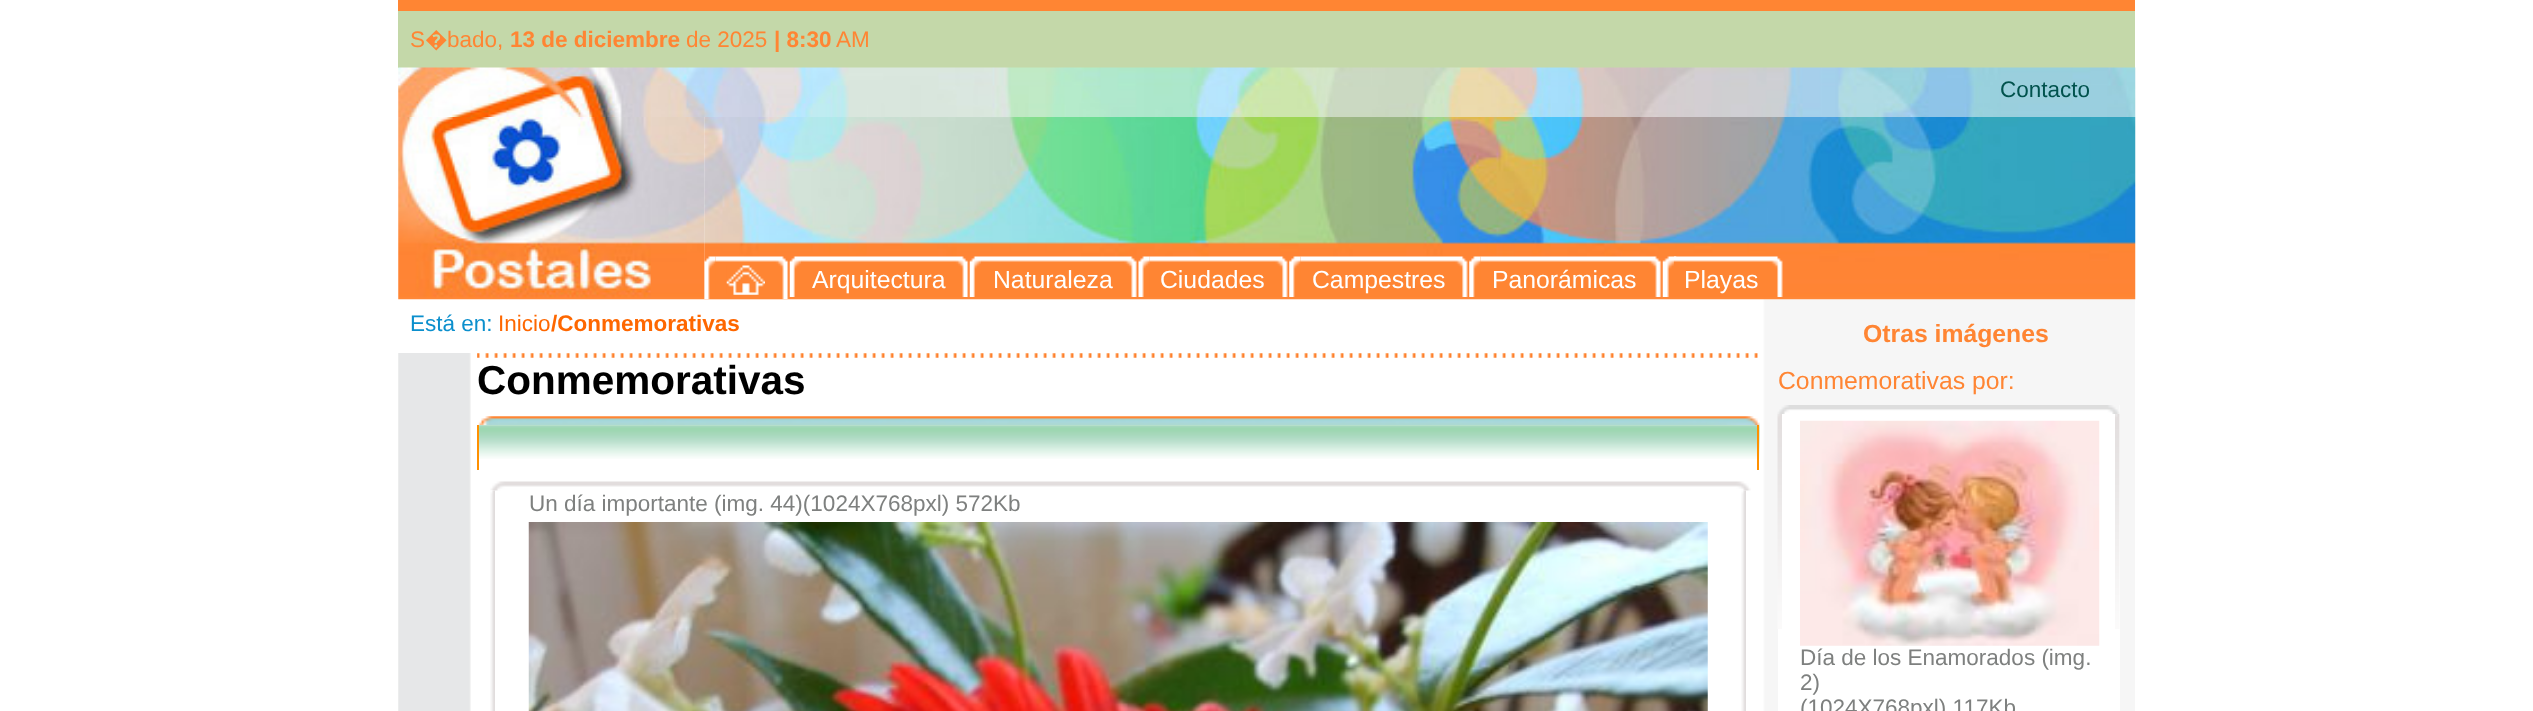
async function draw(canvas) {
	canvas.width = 2533;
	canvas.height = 711;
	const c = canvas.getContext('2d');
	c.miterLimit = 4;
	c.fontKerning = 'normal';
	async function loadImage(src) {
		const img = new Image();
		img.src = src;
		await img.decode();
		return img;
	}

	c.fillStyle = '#fff';
	c.fillRect(0, 0, 2533, 711);
	c.fillStyle = '#ff8533';
	c.fillRect(398, 0, 1737, 11);
	c.fillStyle = '#c4d8a9';
	c.fillRect(398, 11, 1737, 57);
	c.font = '22.5px Liberation Sans';
	c.fillStyle = '#ff8533';
	c.fillText('S', 410, 47);
	c.font = '22.5px Noto Sans';
	c.fillText('�', 425, 47);
	c.font = '22.5px Liberation Sans';
	c.fillText('bado,', 447, 47);
	c.font = 'bold 22.5px Liberation Sans';
	c.fillText('13 de diciembre', 510, 47);
	c.font = '22.5px Liberation Sans';
	c.fillText('de 2025', 686, 47);
	c.font = 'bold 22.5px Liberation Sans';
	c.fillText('| 8:30', 774, 47);
	c.font = '22.5px Liberation Sans';
	c.fillText('AM', 836, 47);
	c.drawImage(await loadImage('img1.png'), 398, 67, 1738, 50);
	c.fillStyle = '#01524d';
	c.fillText('Contacto', 2000, 97);
	c.drawImage(await loadImage('img19.png'), 398, 299, 1737, 412);
	c.fillStyle = '#fff';
	c.fillRect(398, 299, 73, 54);
	c.drawImage(await loadImage('img2.png'), 398, 117, 307, 183);
	c.drawImage(await loadImage('img3.png'), 704, 117, 1432, 183);
	c.drawImage(await loadImage('img4.png'), 704, 256, 12, 44);
	c.drawImage(await loadImage('img5.png'), 715, 256, 74, 44);
	c.drawImage(await loadImage('img6.png'), 726, 265, 39, 30);
	c.drawImage(await loadImage('img7.png'), 789, 256, 12, 41);
	c.drawImage(await loadImage('img8.png'), 801, 256, 168, 41);
	c.font = '24.75px Liberation Sans';
	c.fillText('Arquitectura', 812, 288);
	c.drawImage(await loadImage('img9.png'), 969, 256, 12, 41);
	c.drawImage(await loadImage('img10.png'), 981, 256, 156, 41);
	c.fillText('Naturaleza', 993, 288);
	c.drawImage(await loadImage('img11.png'), 1138, 256, 12, 41);
	c.drawImage(await loadImage('img12.png'), 1149, 256, 139, 41);
	c.fillText('Ciudades', 1160, 288);
	c.drawImage(await loadImage('img13.png'), 1289, 256, 12, 41);
	c.drawImage(await loadImage('img14.png'), 1300, 256, 168, 41);
	c.fillText('Campestres', 1312, 288);
	c.drawImage(await loadImage('img15.png'), 1469, 256, 12, 41);
	c.drawImage(await loadImage('img16.png'), 1480, 256, 182, 41);
	c.fillText('Panorámicas', 1492, 288);
	c.drawImage(await loadImage('img17.png'), 1662, 256, 15, 41);
	c.drawImage(await loadImage('img18.png'), 1674, 256, 109, 41);
	c.fillText('Playas', 1684, 288);
	c.font = '22.5px Liberation Sans';
	c.fillStyle = '#0b8fcd';
	c.fillText('Está en:', 410, 331);
	c.fillStyle = '#fe6700';
	c.fillText('Inicio', 498, 331);
	c.font = 'bold 22.5px Liberation Sans';
	c.fillText('/Conmemorativas', 551, 331);
	c.drawImage(await loadImage('img20.png'), 477, 353, 1281, 5);
	c.font = 'bold 40.5px Liberation Sans';
	c.fillStyle = '#000';
	c.fillText('Conmemorativas', 477, 394);
	c.drawImage(await loadImage('img21.png'), 478, 416, 1282, 10);
	c.drawImage(await loadImage('img22.png'), 479, 425, 1281, 34);
	c.fillStyle = '#ff9001';
	c.fillRect(1757, 425, 2, 45);
	c.fillRect(477, 425, 2, 45);
	c.drawImage(await loadImage('img23.png'), 490, 481, 1261, 10);
	c.drawImage(await loadImage('img24.png'), 490, 490, 5, 221);
	c.font = '22.5px Liberation Sans';
	c.fillStyle = '#7e807f';
	c.fillText('Un día importante (img. 44)(1024X768pxl) 572Kb', 529, 511);
	c.drawImage(await loadImage('img25.png'), 528, 522, 1180, 189);
	c.drawImage(await loadImage('img26.png'), 1741, 490, 5, 221);
	c.font = 'bold 24.75px Liberation Sans';
	c.fillStyle = '#ff8533';
	c.fillText('Otras imágenes', 1863, 342);
	c.font = '24.75px Liberation Sans';
	c.fillText('Conmemorativas por:', 1778, 389);
	c.fillStyle = '#fff';
	c.fillRect(1778, 405, 342, 306);
	c.drawImage(await loadImage('img27.png'), 1777, 405, 343, 9);
	c.drawImage(await loadImage('img28.png'), 1777, 414, 5, 215);
	c.drawImage(await loadImage('img29.png'), 2115, 414, 5, 215);
	c.drawImage(await loadImage('img30.png'), 1800, 420, 300, 226);
	c.font = '22.5px Liberation Sans';
	c.fillStyle = '#7e807f';
	for (const [text, x, y] of [
		['Día de los Enamorados (img.', 1800, 665],
		['2)', 1800, 690],
		['(1024X768pxl) 117Kb', 1800, 715],
	]) {
		c.fillText(text, x, y);
	}
}

draw(document.querySelector('canvas'));
